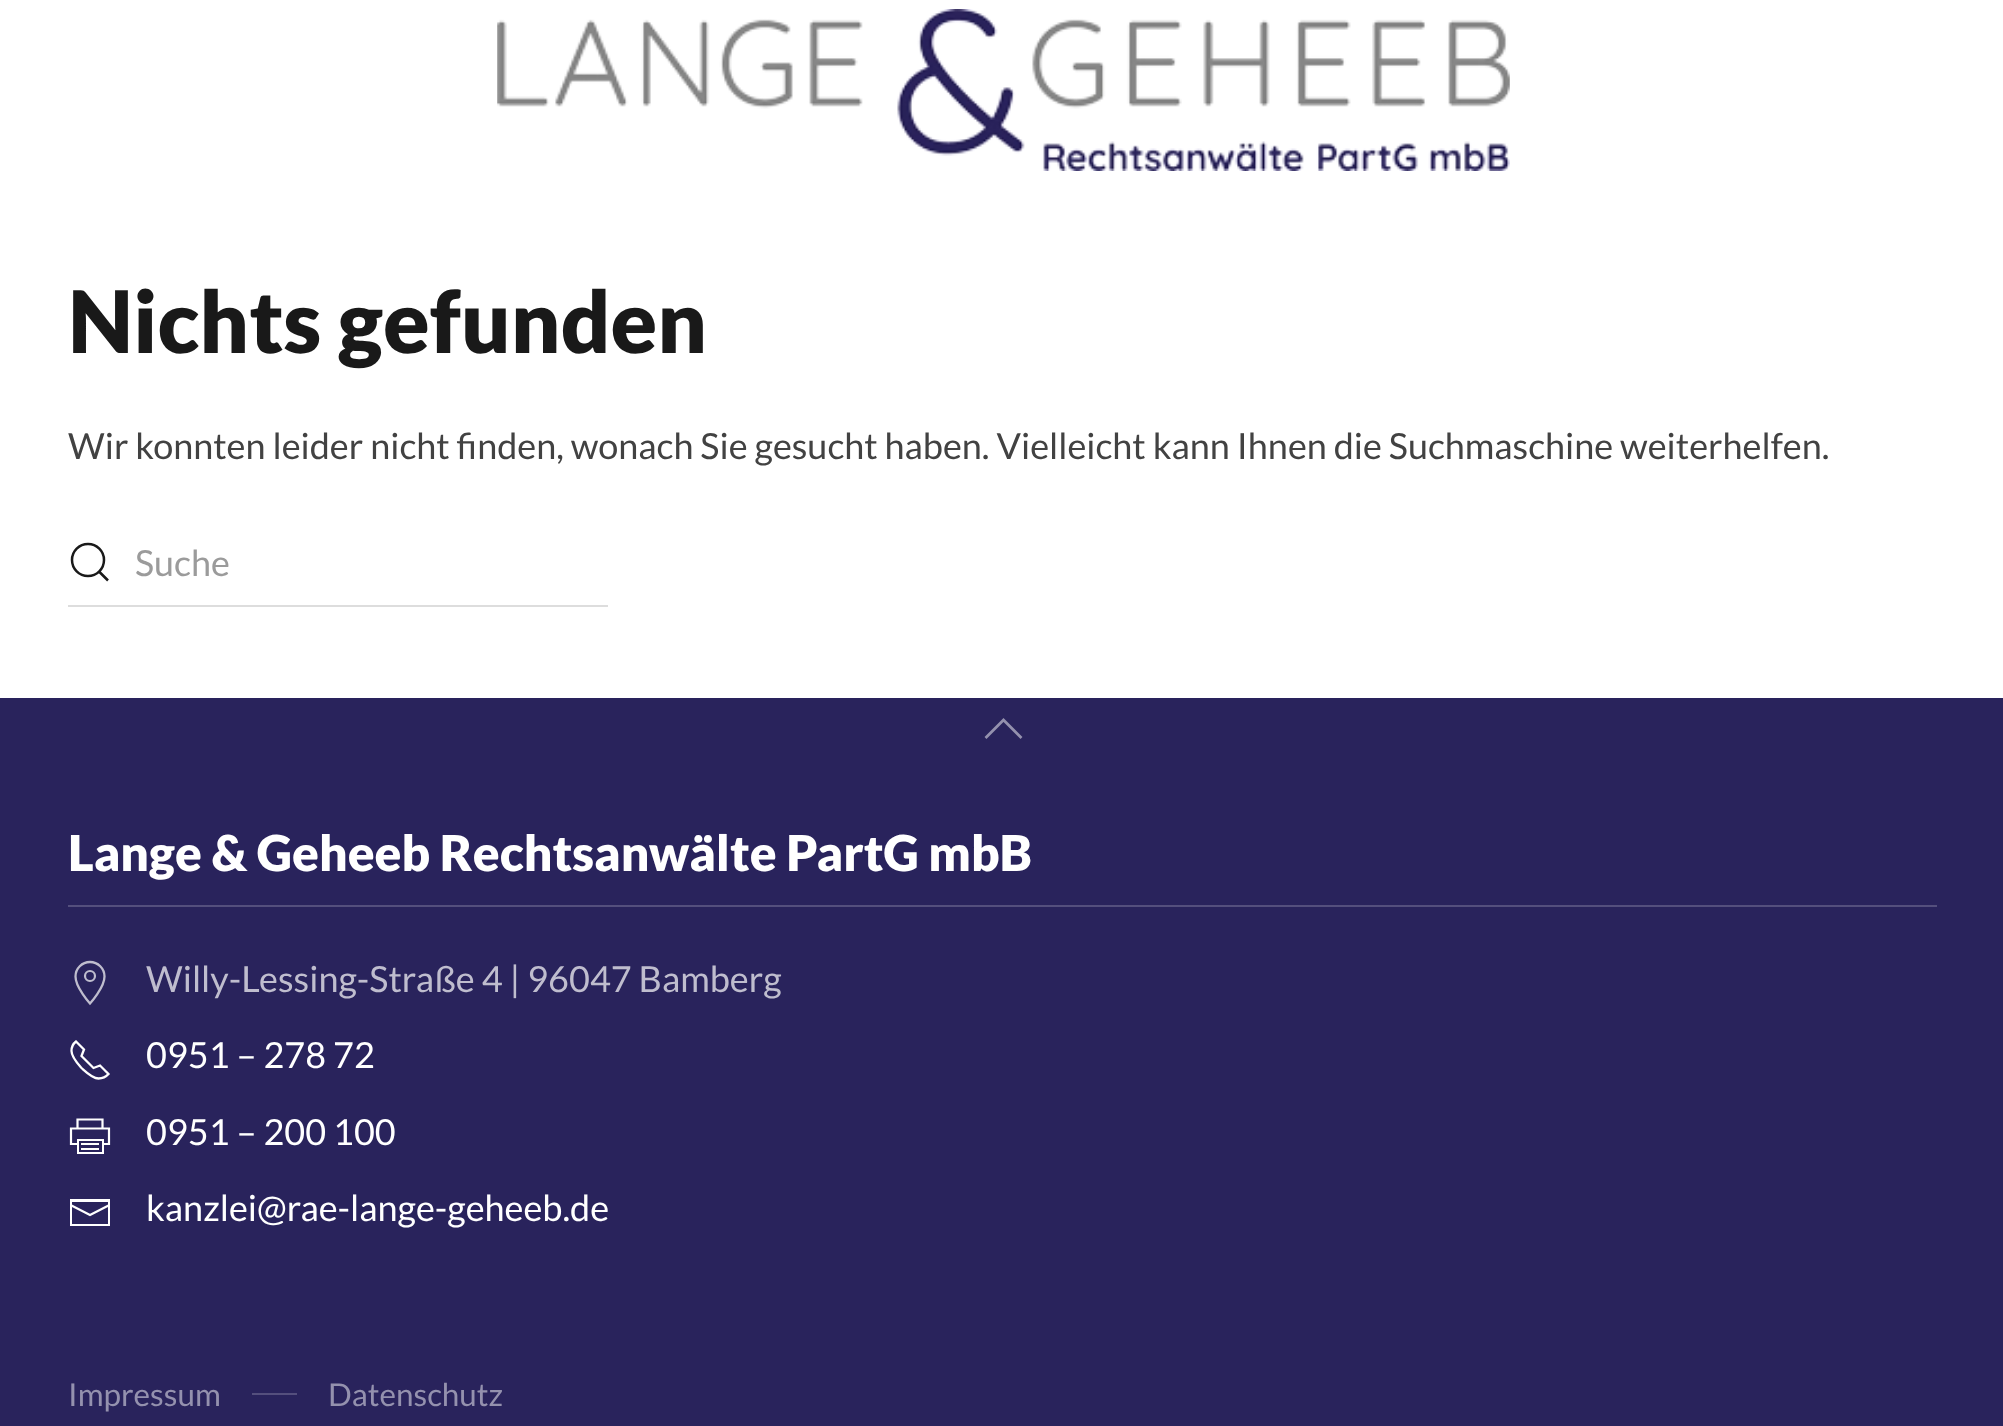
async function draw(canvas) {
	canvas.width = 2003;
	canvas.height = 1426;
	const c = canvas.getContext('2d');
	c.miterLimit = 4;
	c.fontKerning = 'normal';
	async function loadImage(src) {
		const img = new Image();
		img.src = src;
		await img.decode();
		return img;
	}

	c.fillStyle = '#fff';
	c.fillRect(0, 0, 2003, 1426);
	c.drawImage(await loadImage('img1.png'), 497, 9, 1013, 162);
	c.font = '900 86px Lato';
	c.fillStyle = '#191919';
	c.fillText('Nichts gefunden', 68, 353);
	c.font = '36px Lato';
	c.fillStyle = '#424242';
	c.fillText('Wir konnten leider nicht finden, wonach Sie gesucht haben. Vielleicht kann Ihnen die Suchmaschine weiterhelfen.', 68, 459);
	c.beginPath();
	c.arc(88, 560, 16, 0, 2 * Math.PI);
	c.strokeStyle = '#191919';
	c.lineWidth = 2.5;
	c.stroke();
	c.beginPath();
	c.moveTo(99, 571.5);
	c.lineTo(108, 580.5);
	c.closePath();
	c.stroke();
	c.fillStyle = '#ddd';
	c.fillRect(68, 605, 540, 2);
	c.fillStyle = '#9b9b9b';
	c.fillText('Suche', 135, 576);
	c.fillStyle = '#29235c';
	c.fillRect(0, 698, 2003, 728);
	c.beginPath();
	c.moveTo(985.5, 738);
	c.lineTo(1003.5, 720);
	c.lineTo(1021.5, 738);
	c.strokeStyle = '#9491ae';
	c.lineWidth = 2.7;
	c.stroke();
	c.fillStyle = '#544f7d';
	c.fillRect(68, 905, 1869, 2);
	c.font = '900 49.5px Lato';
	c.fillStyle = '#fff';
	c.fillText('Lange & Geheeb Rechtsanwälte PartG mbB', 68, 871);
	c.beginPath();
	c.moveTo(90, 962);
	c.bezierCurveTo(82, 962, 75.5, 968.5, 75.5, 976.5);
	c.bezierCurveTo(75.5, 987.5, 90, 1003.5, 90, 1003.5);
	c.bezierCurveTo(90, 1003.5, 104.5, 987.5, 104.5, 976.5);
	c.bezierCurveTo(104.5, 968.5, 98, 962, 90, 962);
	c.closePath();
	c.strokeStyle = '#bfbdce';
	c.lineWidth = 2.3;
	c.stroke();
	c.beginPath();
	c.arc(90, 976, 5, 0, 2 * Math.PI);
	c.lineWidth = 2.2;
	c.stroke();
	c.font = '36px Lato';
	c.fillStyle = '#bfbdce';
	c.fillText('Willy-Lessing-Straße 4 | 96047 Bamberg', 146, 992);
	c.beginPath();
	c.moveTo(81.5, 1068);
	c.bezierCurveTo(86, 1072, 92.5, 1078.5, 98.5, 1078.5);
	c.bezierCurveTo(104.5, 1078.5, 108.5, 1074, 108.5, 1074);
	c.lineTo(100, 1065.5);
	c.lineTo(93.5, 1068);
	c.lineTo(81.5, 1056);
	c.lineTo(84, 1049.5);
	c.lineTo(76, 1041.5);
	c.bezierCurveTo(76, 1041.5, 71.5, 1045, 71.5, 1051);
	c.bezierCurveTo(71.5, 1057, 77.5, 1063.5, 81.5, 1068);
	c.strokeStyle = '#fff';
	c.lineWidth = 2.3;
	c.stroke();
	c.fillStyle = '#fff';
	c.fillText('0951 – 278 72', 146, 1068);
	c.beginPath();
	c.moveTo(77.5, 1144);
	c.lineTo(71, 1144);
	c.lineTo(71, 1128.5);
	c.lineTo(109, 1128.5);
	c.lineTo(109, 1144);
	c.lineTo(102.5, 1144);
	c.moveTo(102.5, 1128.5);
	c.lineTo(102.5, 1119.5);
	c.lineTo(77.5, 1119.5);
	c.lineTo(77.5, 1128.5);
	c.lineWidth = 2.2;
	c.stroke();
	c.lineWidth = 2;
	c.strokeRect(78, 1140, 25, 13);
	c.fillRect(81, 1143, 18, 2);
	c.fillRect(81, 1148, 18, 2);
	c.fillText('0951 – 200 100', 146, 1145);
	c.beginPath();
	c.moveTo(70.5, 1205);
	c.lineTo(90, 1215);
	c.lineTo(109.5, 1205);
	c.lineWidth = 2.2;
	c.stroke();
	c.beginPath();
	c.moveTo(70, 1199);
	c.lineTo(70, 1226);
	c.lineTo(110, 1226);
	c.lineTo(110, 1199);
	c.closePath();
	c.moveTo(108, 1224);
	c.lineTo(72, 1224);
	c.lineTo(72, 1202);
	c.lineTo(108, 1202);
	c.closePath();
	c.fill();
	c.fillText('kanzlei@rae-lange-geheeb.de', 146, 1221);
	c.font = '31.5px Lato';
	c.fillStyle = '#9491ae';
	c.fillText('Impressum', 68, 1406);
	c.fillStyle = '#544f7d';
	c.fillRect(252, 1393, 45, 2);
	c.fillStyle = '#9491ae';
	c.fillText('Datenschutz', 328, 1406);
}

draw(document.querySelector('canvas'));
